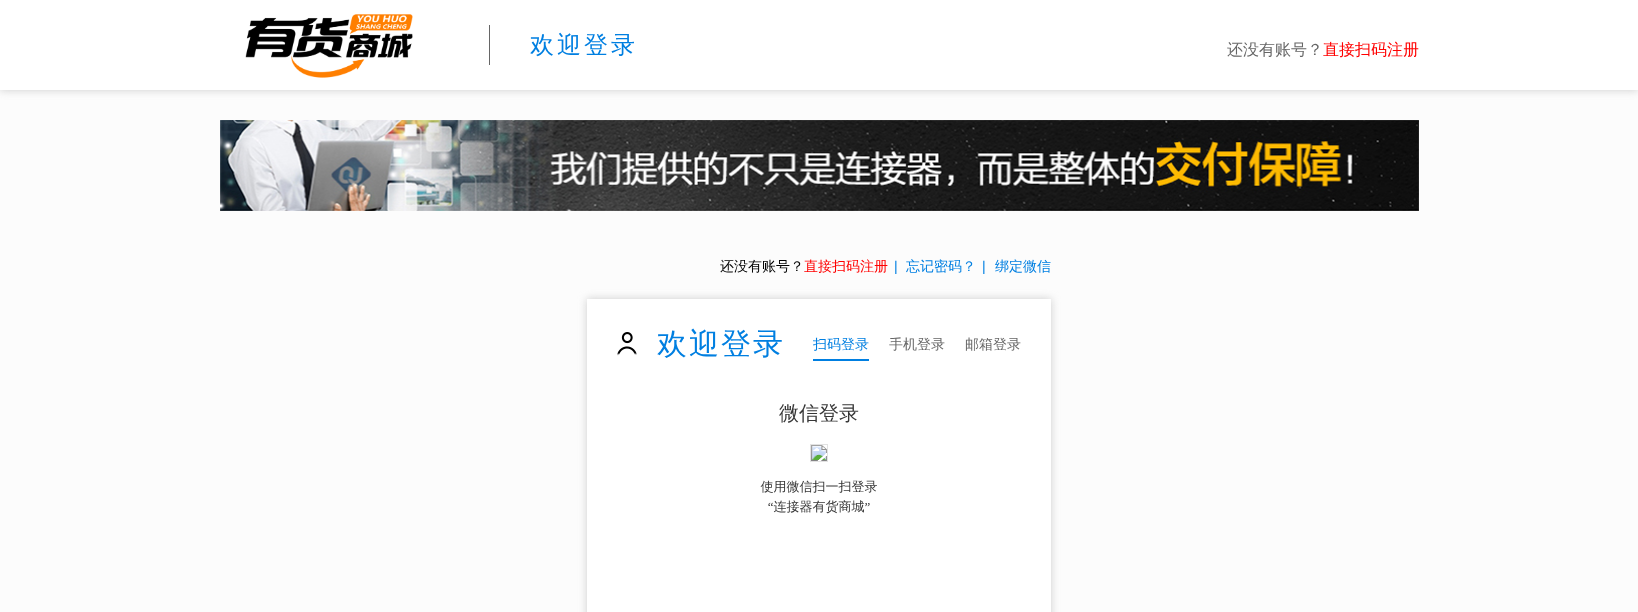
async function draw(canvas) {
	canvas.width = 1638;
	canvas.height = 612;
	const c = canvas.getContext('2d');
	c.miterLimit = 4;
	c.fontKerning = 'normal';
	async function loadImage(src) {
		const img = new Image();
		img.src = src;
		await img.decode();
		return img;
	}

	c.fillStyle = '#fcfcfc';
	c.fillRect(0, 0, 1638, 612);
	c.fillStyle = '#ccc';
	c.filter = 'blur(4px)';
	c.beginPath();
	c.rect(0, 0, 1638, 90);
	c.fill();
	c.filter = 'none';
	c.fillStyle = '#fff';
	c.fillRect(0, 0, 1638, 90);
	c.drawImage(await loadImage('img1.png'), 245, 14, 168, 64);
	c.fillStyle = '#666';
	c.fillRect(489, 25, 1, 40);
	c.letterSpacing = '3px';
	c.font = '500 24px WenQuanYi Zen Hei';
	c.fillStyle = '#007fe1';
	c.fillText('欢迎登录', 530, 53);
	c.letterSpacing = '0px';
	c.font = '500 16px WenQuanYi Zen Hei';
	c.fillStyle = '#666';
	c.fillText('还没有账号？', 1227, 55);
	c.fillStyle = '#f00';
	c.fillText('直接扫码注册', 1323, 55);
	c.drawImage(await loadImage('img2.png'), 220, 120, 1199, 91);
	c.font = '500 14px WenQuanYi Zen Hei';
	c.fillStyle = '#000';
	c.fillText('还没有账号？', 720, 271);
	c.fillStyle = '#f00';
	c.fillText('直接扫码注册', 804, 271);
	c.font = '14px Liberation Sans';
	c.fillStyle = '#007fe1';
	c.fillText('|', 894, 271);
	c.font = '500 14px WenQuanYi Zen Hei';
	c.fillText('忘记密码？', 906, 271);
	c.font = '14px Liberation Sans';
	c.fillText('|', 982, 271);
	c.font = '500 14px WenQuanYi Zen Hei';
	c.fillText('绑定微信', 995, 271);
	c.fillStyle = '#ccc';
	c.filter = 'blur(4px)';
	c.beginPath();
	c.rect(587, 299, 464, 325);
	c.fill();
	c.filter = 'none';
	c.fillStyle = '#fff';
	c.fillRect(587, 299, 464, 313);
	c.drawImage(await loadImage('img3.png'), 617, 332, 20, 24);
	c.letterSpacing = '2px';
	c.font = '500 30px WenQuanYi Zen Hei';
	c.fillStyle = '#007fe1';
	c.fillText('欢迎登录', 657, 354);
	c.fillRect(813, 359, 56, 2);
	c.letterSpacing = '0px';
	c.font = '500 14px WenQuanYi Zen Hei';
	c.fillText('扫码登录', 813, 349);
	c.fillStyle = '#666';
	c.fillText('手机登录', 889, 349);
	c.fillText('邮箱登录', 965, 349);
	c.drawImage(await loadImage('img4.png'), 760, 403, 117, 111);
}

draw(document.querySelector('canvas'));
